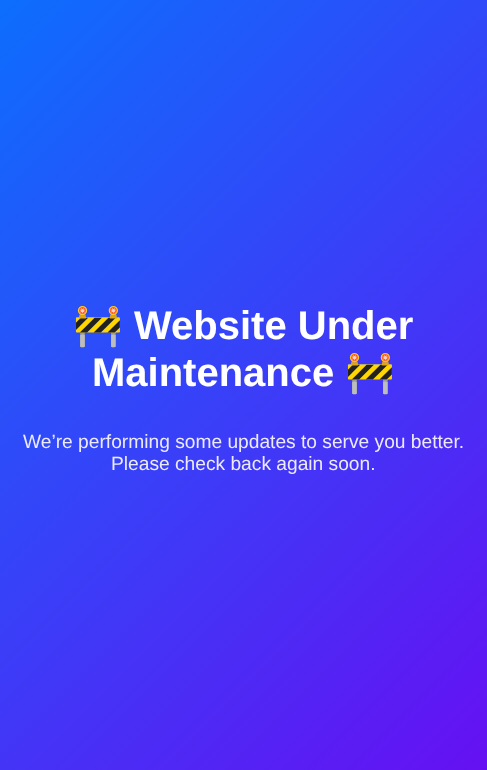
async function draw(canvas) {
	canvas.width = 487;
	canvas.height = 770;
	const c = canvas.getContext('2d');
	c.miterLimit = 4;
	c.fontKerning = 'normal';
	let gradient;

	c.fillStyle = '#fff';
	c.fillRect(0, 0, 487, 770);
	gradient = c.createLinearGradient(-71, 71, 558, 699);
	gradient.addColorStop(0, '#0d6efd');
	gradient.addColorStop(1, '#6610f2');
	c.fillStyle = gradient;
	c.fillRect(0, 0, 487, 770);
	c.font = 'bold 40px Noto Color Emoji';
	c.fillStyle = '#fff';
	c.fillText('🚧', 73, 339);
	c.font = 'bold 40px Liberation Sans';
	c.fillText('Website Under', 134, 339);
	c.fillText('Maintenance', 92, 386);
	c.font = 'bold 40px Noto Color Emoji';
	c.fillText('🚧', 345, 386);
	c.font = '19.2px Liberation Sans';
	c.fillStyle = '#ecebfe';
	c.fillText('We’re performing some updates to serve you better.', 23, 448);
	c.fillText('Please check back again soon.', 111, 470);
}

draw(document.querySelector('canvas'));
